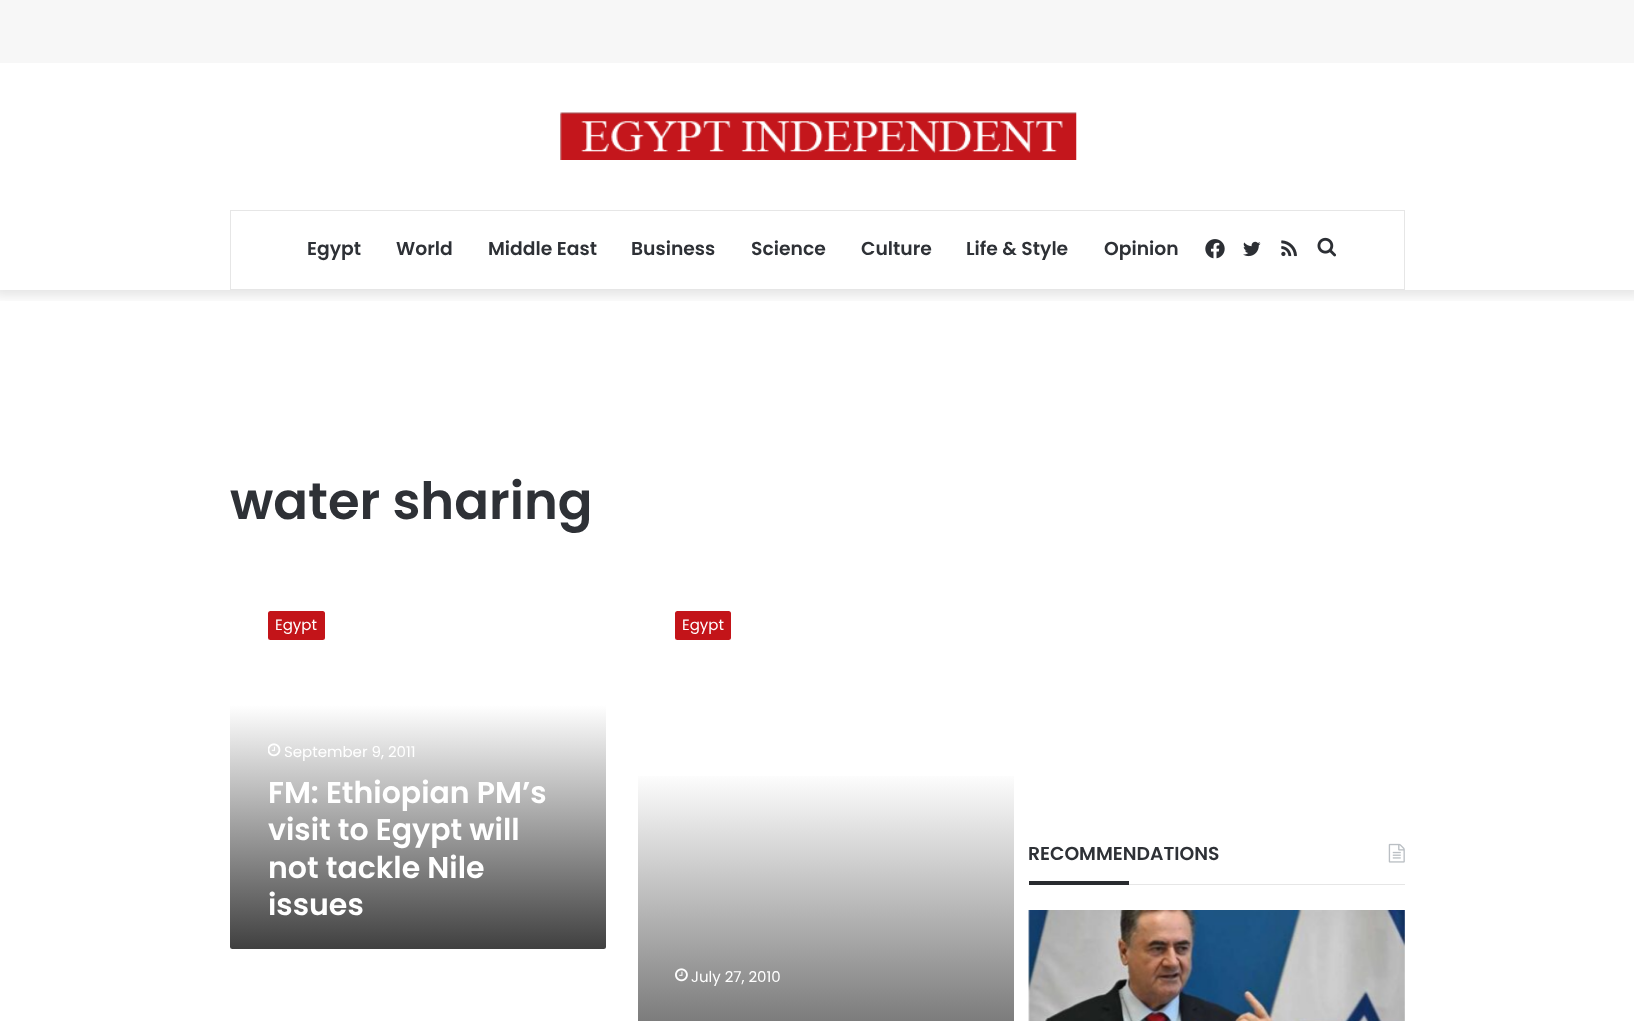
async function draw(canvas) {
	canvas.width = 1634;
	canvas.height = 1021;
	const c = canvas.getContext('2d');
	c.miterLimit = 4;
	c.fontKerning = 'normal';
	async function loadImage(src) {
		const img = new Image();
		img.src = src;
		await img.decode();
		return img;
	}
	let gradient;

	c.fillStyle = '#f7f7f7';
	c.fillRect(0, 0, 1634, 1021);
	c.fillStyle = '#fff';
	c.fillRect(0, 63, 1634, 958);
	c.save();
	c.beginPath();
	c.rect(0, 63, 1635, 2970);
	c.clip();
	c.beginPath();
	c.rect(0, 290, 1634, 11);
	c.clip();
	c.fillStyle = '#0000001a';
	c.filter = 'blur(6px)';
	c.beginPath();
	c.rect(-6, 56, 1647, 240);
	c.fill();
	c.filter = 'none';
	c.restore();
	c.drawImage(await loadImage('img1.png'), 560, 112, 517, 48);
	c.strokeStyle = '#e6e6e6';
	c.strokeRect(230.5, 210.5, 1174, 79);
	c.font = '600 18.75px Poppins';
	c.fillStyle = '#2e3136';
	for (const [text, x, y] of [
		['Egypt', 307, 255],
		['World', 396, 255],
		['Middle East', 488, 255],
		['Business', 631, 255],
		['Science', 751, 255],
		['Culture', 861, 255],
		['Life & Style', 966, 255],
		['Opinion', 1104, 255],
	]) {
		c.fillText(text, x, y);
	}
	c.drawImage(await loadImage('img2.png'), 1205, 239, 20, 20);
	c.drawImage(await loadImage('img3.png'), 1243, 241, 18, 16);
	c.drawImage(await loadImage('img4.png'), 1281, 240, 16, 17);
	c.drawImage(await loadImage('img5.png'), 1317, 237, 19, 20);
	c.font = '600 51.25px Poppins';
	c.fillText('water sharing', 230, 519);
	c.fillStyle = '#c31419';
	c.beginPath();
	c.roundRect(268, 611, 57, 29, 2.5);
	c.fill();
	c.font = '15px Poppins';
	c.fillStyle = '#fff';
	c.fillText('Egypt', 275, 630);
	gradient = c.createLinearGradient(418, 705, 418, 949);
	gradient.addColorStop(0, '#fff');
	gradient.addColorStop(1, '#404040');
	c.fillStyle = gradient;
	c.beginPath();
	c.roundRect(230, 705, 376, 244, [0, 0, 2.5, 2.5]);
	c.fill();
	c.drawImage(await loadImage('img6.png'), 268, 743, 13, 14);
	c.fillStyle = '#fff';
	c.fillText('September 9, 2011', 284, 757);
	c.font = '600 30px Poppins';
	for (const [text, x, y] of [
		['FM: Ethiopian PM’s', 268, 803],
		['visit to Egypt will', 268, 840],
		['not tackle Nile', 268, 878],
		['issues', 268, 915],
	]) {
		c.fillText(text, x, y);
	}
	c.fillStyle = '#c31419';
	c.beginPath();
	c.roundRect(675, 611, 56, 29, 2.5);
	c.fill();
	c.font = '15px Poppins';
	c.fillStyle = '#fff';
	c.fillText('Egypt', 682, 630);
	gradient = c.createLinearGradient(826, 771, 826, 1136);
	gradient.addColorStop(0, '#fff');
	gradient.addColorStop(1, '#404040');
	c.fillStyle = gradient;
	c.fillRect(638, 776, 376, 245);
	c.drawImage(await loadImage('img7.png'), 675, 968, 13, 14);
	c.fillStyle = '#fff';
	c.fillText('July 27, 2010', 691, 982);
	c.fillStyle = '#e6e6e6';
	c.fillRect(1129, 884, 276, 1);
	c.font = '600 18.75px Poppins';
	c.fillStyle = '#2e3136';
	c.fillText('RECOMMENDATIONS', 1028, 860);
	c.drawImage(await loadImage('img8.png'), 1388, 843, 17, 20);
	c.fillStyle = '#292b2f';
	c.fillRect(1029, 881, 100, 4);
	c.drawImage(await loadImage('img9.png'), 1028, 910, 377, 111);
}

draw(document.querySelector('canvas'));
